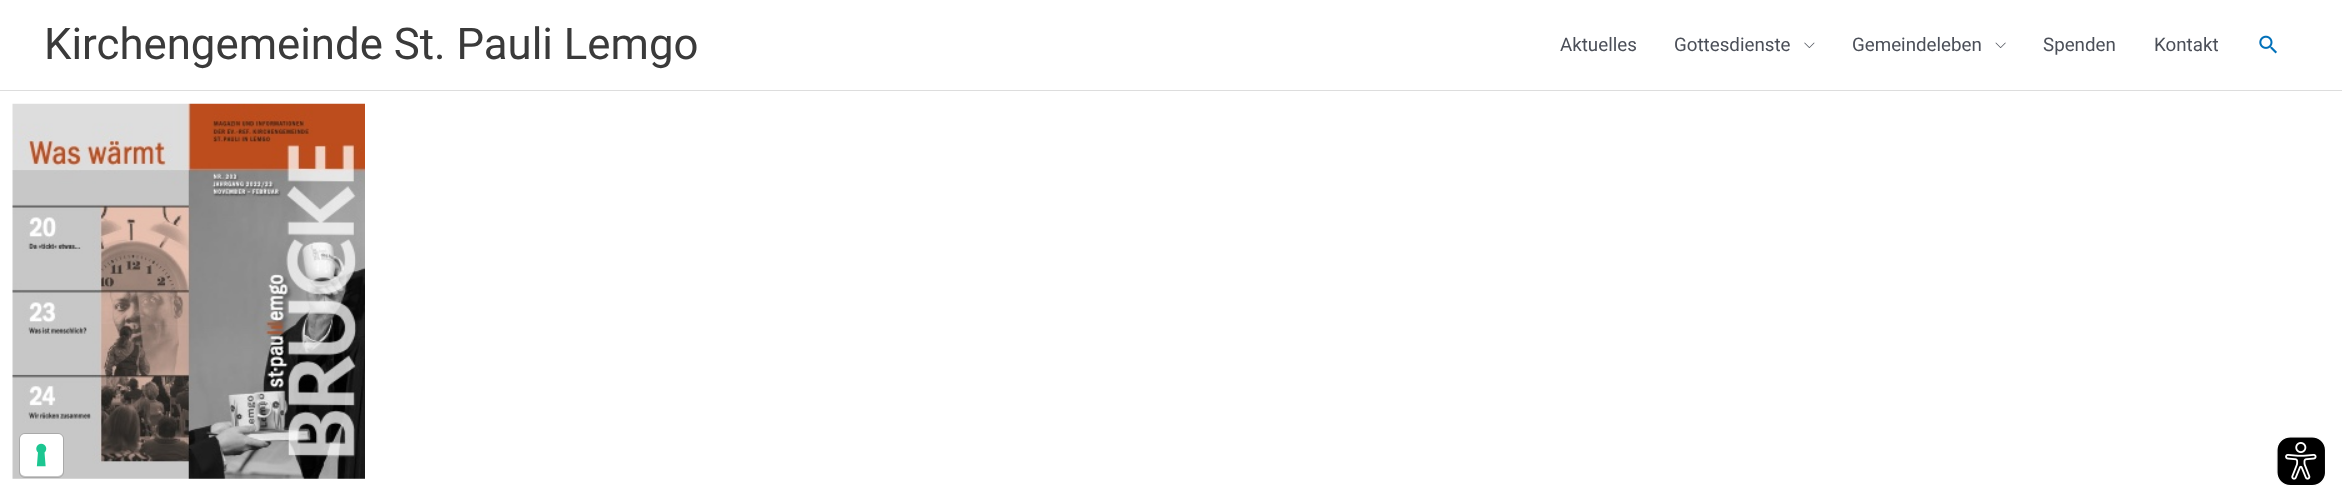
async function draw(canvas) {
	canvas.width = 2342;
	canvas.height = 496;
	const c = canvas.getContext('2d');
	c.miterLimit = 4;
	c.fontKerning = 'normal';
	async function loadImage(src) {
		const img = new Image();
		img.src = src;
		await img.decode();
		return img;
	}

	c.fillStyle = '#fff';
	c.fillRect(0, 0, 2342, 496);
	c.fillStyle = '#ddd';
	c.fillRect(0, 90, 2342, 1);
	c.font = '43.75px Roboto';
	c.fillStyle = '#3a3a3a';
	c.fillText('Kirchengemeinde St. Pauli Lemgo', 44, 59);
	c.font = '18.75px Roboto';
	c.fillStyle = '#4b4f58';
	c.fillText('Aktuelles', 1560, 51);
	c.fillText('Gottesdienste', 1674, 51);
	c.drawImage(await loadImage('img1.png'), 1804, 42, 11, 6);
	c.fillText('Gemeindeleben', 1852, 51);
	c.drawImage(await loadImage('img2.png'), 1995, 42, 11, 6);
	c.fillText('Spenden', 2043, 51);
	c.fillText('Kontakt', 2154, 51);
	c.drawImage(await loadImage('img3.png'), 2259, 35, 18, 19);
	c.drawImage(await loadImage('img4.png'), 12, 103, 353, 376);
	c.beginPath();
	c.roundRect(19.5, 433.5, 44, 44, 5.5);
	c.strokeStyle = '#a9a9a9';
	c.stroke();
	c.fillStyle = '#fff';
	c.beginPath();
	c.roundRect(20, 434, 43, 42, 5);
	c.fill();
	c.drawImage(await loadImage('img5.png'), 36, 443, 11, 24);
	c.drawImage(await loadImage('img6.png'), 2276, 436, 50, 50);
}

draw(document.querySelector('canvas'));
